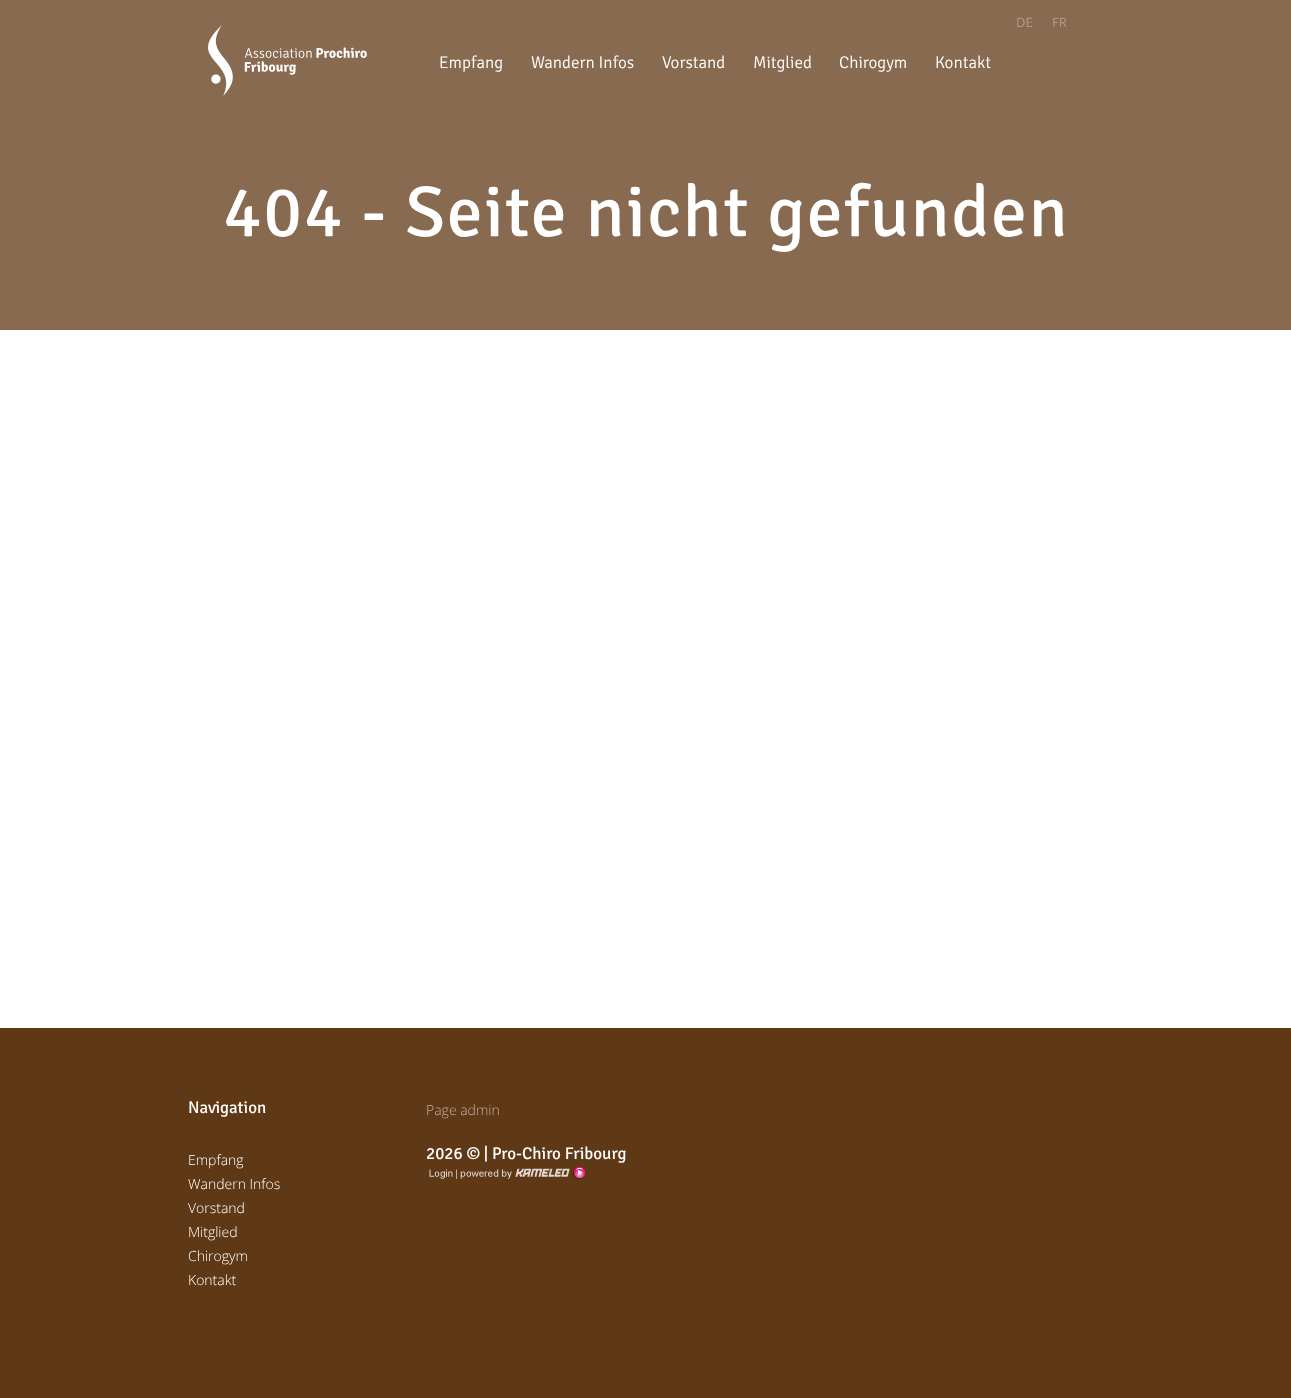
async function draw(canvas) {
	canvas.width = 1291;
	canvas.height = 1398;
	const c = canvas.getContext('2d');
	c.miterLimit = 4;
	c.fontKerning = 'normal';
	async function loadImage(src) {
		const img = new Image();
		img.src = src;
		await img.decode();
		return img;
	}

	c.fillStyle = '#fff';
	c.fillRect(0, 0, 1291, 1398);
	c.fillStyle = '#876a50';
	c.fillRect(0, 0, 1291, 330);
	c.font = '13px Open Sans';
	c.fillStyle = '#af9b8a';
	c.fillText('DE', 1016, 27);
	c.fillText('FR', 1052, 27);
	c.drawImage(await loadImage('img1.png'), 208, 25, 159, 71);
	c.font = '300 17px "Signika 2"';
	c.fillStyle = '#fff';
	for (const [text, x, y] of [
		['Empfang', 439, 68],
		['Wandern Infos', 531, 68],
		['Vorstand', 662, 68],
		['Mitglied', 753, 68],
		['Chirogym', 839, 68],
		['Kontakt', 935, 68],
	]) {
		c.fillText(text, x, y);
	}
	c.letterSpacing = '1.45px';
	c.font = '300 72px Signika';
	c.fillText('404 - Seite nicht gefunden', 223, 236);
	c.fillStyle = '#5f3816';
	c.fillRect(0, 1028, 1291, 370);
	c.letterSpacing = '0px';
	c.font = '300 17px Signika';
	c.fillStyle = '#fff';
	c.fillText('Navigation', 188, 1113);
	c.font = '300 14px Open Sans';
	for (const [text, x, y] of [
		['Empfang', 188, 1165],
		['Wandern Infos', 188, 1189],
		['Vorstand', 188, 1213],
		['Mitglied', 188, 1237],
		['Chirogym', 188, 1261],
		['Kontakt', 188, 1285],
	]) {
		c.fillText(text, x, y);
	}
	c.fillStyle = '#bfafa2';
	c.fillText('Page admin', 426, 1115);
	c.font = '300 17px Signika';
	c.fillStyle = '#fff';
	c.fillText('2026 © | Pro-Chiro Fribourg', 426, 1159);
	c.drawImage(await loadImage('img2.png'), 429, 1169, 24, 10);
	c.drawImage(await loadImage('img3.png'), 456, 1167, 129, 12);
}

draw(document.querySelector('canvas'));
